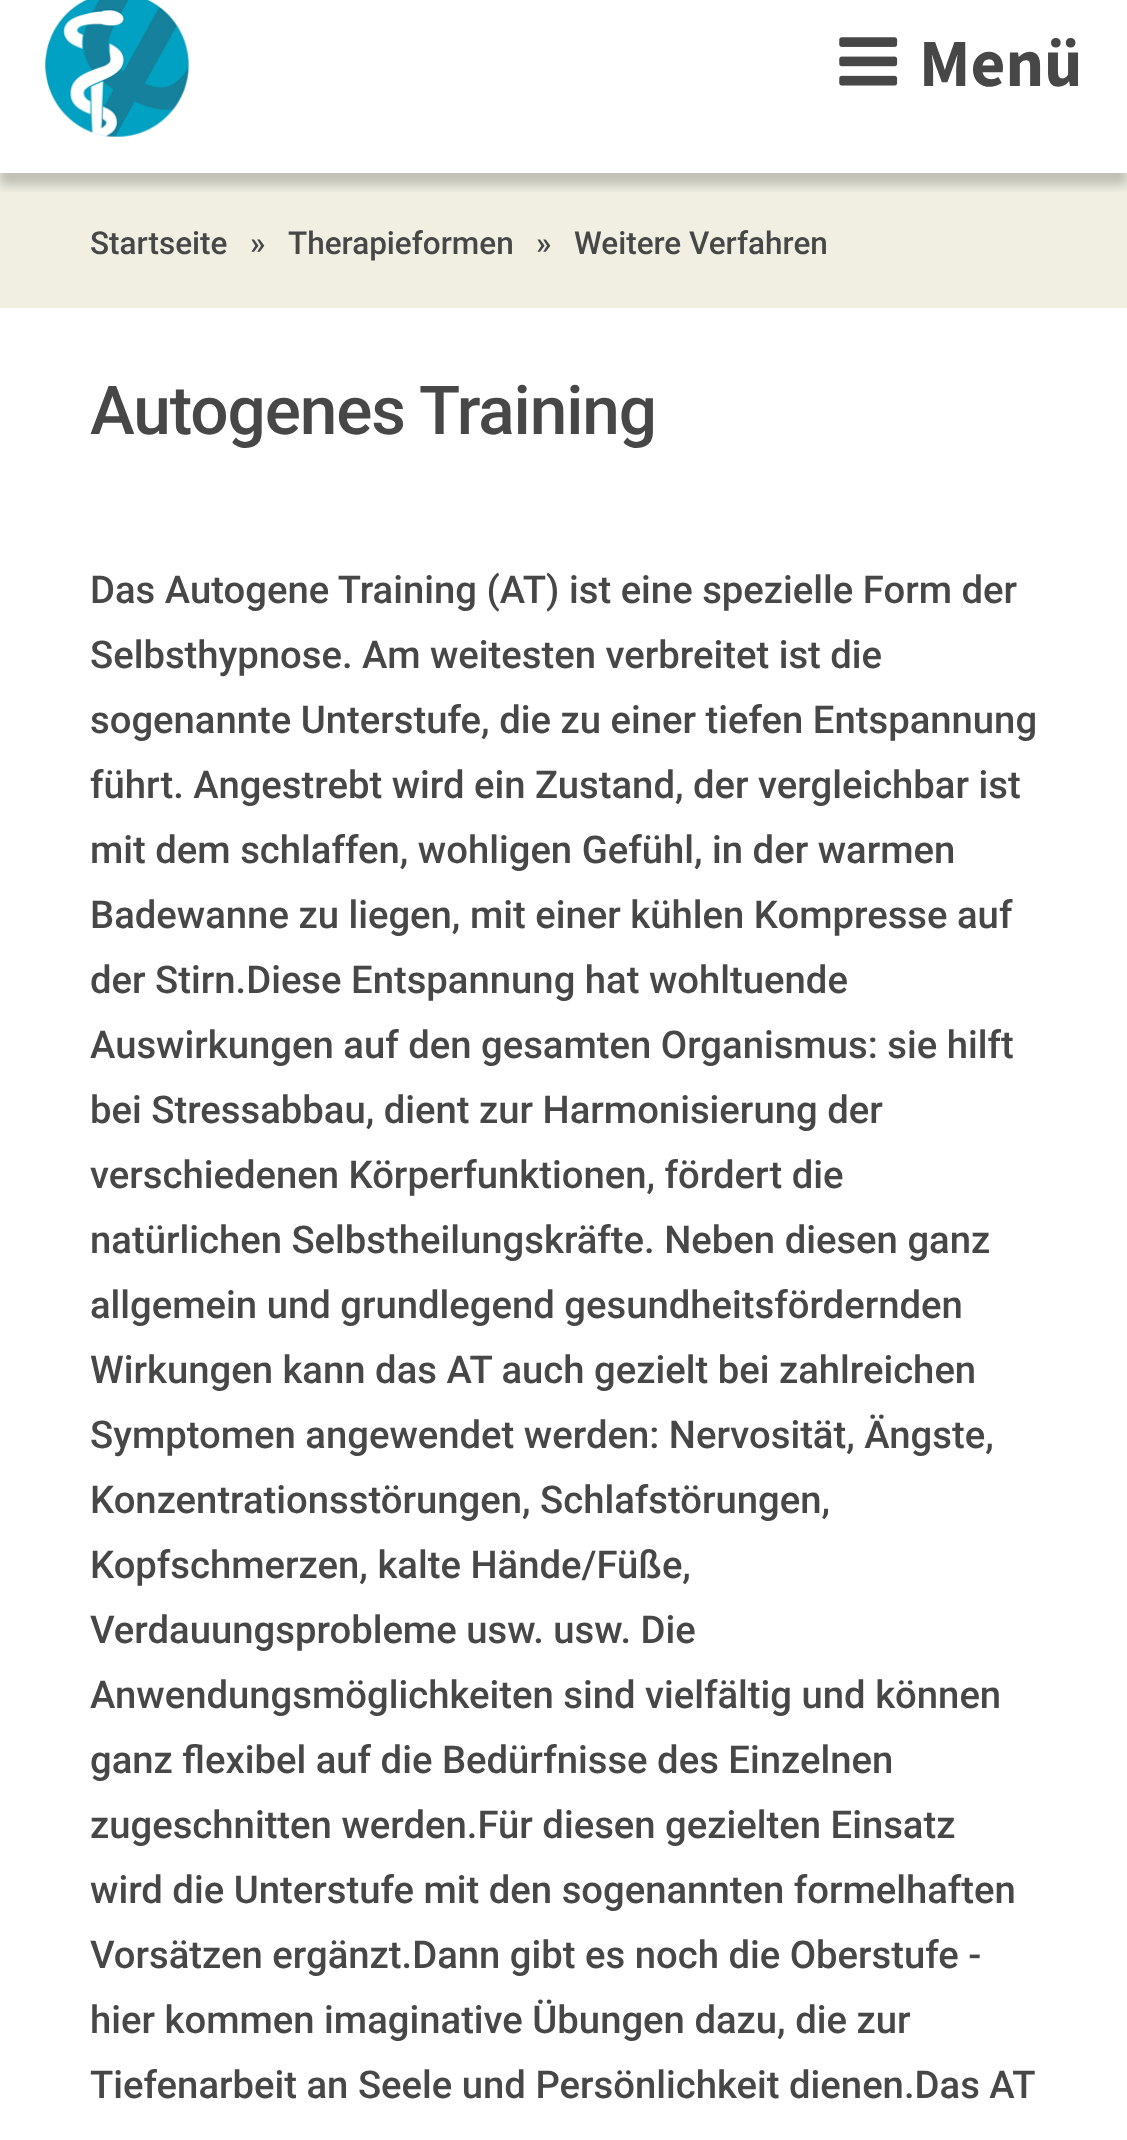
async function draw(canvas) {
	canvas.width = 1127;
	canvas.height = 2140;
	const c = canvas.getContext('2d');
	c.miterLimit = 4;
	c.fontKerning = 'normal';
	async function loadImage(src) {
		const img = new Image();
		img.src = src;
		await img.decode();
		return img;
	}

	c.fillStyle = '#fff';
	c.fillRect(0, 0, 1127, 2140);
	c.fillStyle = '#f0efe2';
	c.fillRect(0, 173, 1127, 135);
	c.save();
	c.beginPath();
	c.rect(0, 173, 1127, 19);
	c.clip();
	c.fillStyle = '#00000033';
	c.filter = 'blur(5.5px)';
	c.beginPath();
	c.rect(0, -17, 1127, 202);
	c.fill();
	c.filter = 'none';
	c.restore();
	c.drawImage(await loadImage('img1.png'), 45, 0, 144, 137);
	c.drawImage(await loadImage('img2.png'), 839, 37, 59, 49);
	c.font = 'bold 67.5px Source Sans Pro';
	c.fillStyle = '#474747';
	c.fillText('Menü', 919, 86);
	c.font = '500 31.5px Roboto';
	for (const [text, x, y] of [
		['Startseite', 90, 254],
		['»', 250, 254],
		['Therapieformen', 288, 254],
		['»', 536, 254],
		['Weitere Verfahren', 574, 254],
	]) {
		c.fillText(text, x, y);
	}
	c.letterSpacing = '-1.1px';
	c.font = '500 67.5px Roboto';
	c.fillText('Autogenes Training', 90, 434);
	c.letterSpacing = '0px';
	c.font = '500 38.25px Roboto';
	for (const [text, x, y] of [
		['Das Autogene Training (AT) ist eine spezielle Form der', 90, 603],
		['Selbsthypnose. Am weitesten verbreitet ist die', 90, 668],
		['sogenannte Unterstufe, die zu einer tiefen Entspannung', 90, 733],
		['führt. Angestrebt wird ein Zustand, der vergleichbar ist', 90, 798],
		['mit dem schlaffen, wohligen Gefühl, in der warmen', 90, 863],
		['Badewanne zu liegen, mit einer kühlen Kompresse auf', 90, 928],
		['der Stirn.Diese Entspannung hat wohltuende', 90, 993],
		['Auswirkungen auf den gesamten Organismus: sie hilft', 90, 1058],
		['bei Stressabbau, dient zur Harmonisierung der', 90, 1123],
		['verschiedenen Körperfunktionen, fördert die', 90, 1188],
		['natürlichen Selbstheilungskräfte. Neben diesen ganz', 90, 1253],
		['allgemein und grundlegend gesundheitsfördernden', 90, 1318],
		['Wirkungen kann das AT auch gezielt bei zahlreichen', 90, 1383],
		['Symptomen angewendet werden: Nervosität, Ängste,', 90, 1448],
		['Konzentrationsstörungen, Schlafstörungen,', 90, 1513],
		['Kopfschmerzen, kalte Hände/Füße,', 90, 1578],
		['Verdauungsprobleme usw. usw. Die', 90, 1643],
		['Anwendungsmöglichkeiten sind vielfältig und können', 90, 1708],
		['ganz flexibel auf die Bedürfnisse des Einzelnen', 90, 1773],
		['zugeschnitten werden.Für diesen gezielten Einsatz', 90, 1838],
		['wird die Unterstufe mit den sogenannten formelhaften', 90, 1903],
		['Vorsätzen ergänzt.Dann gibt es noch die Oberstufe -', 90, 1968],
		['hier kommen imaginative Übungen dazu, die zur', 90, 2033],
		['Tiefenarbeit an Seele und Persönlichkeit dienen.Das AT', 90, 2098],
	]) {
		c.fillText(text, x, y);
	}
}

draw(document.querySelector('canvas'));
